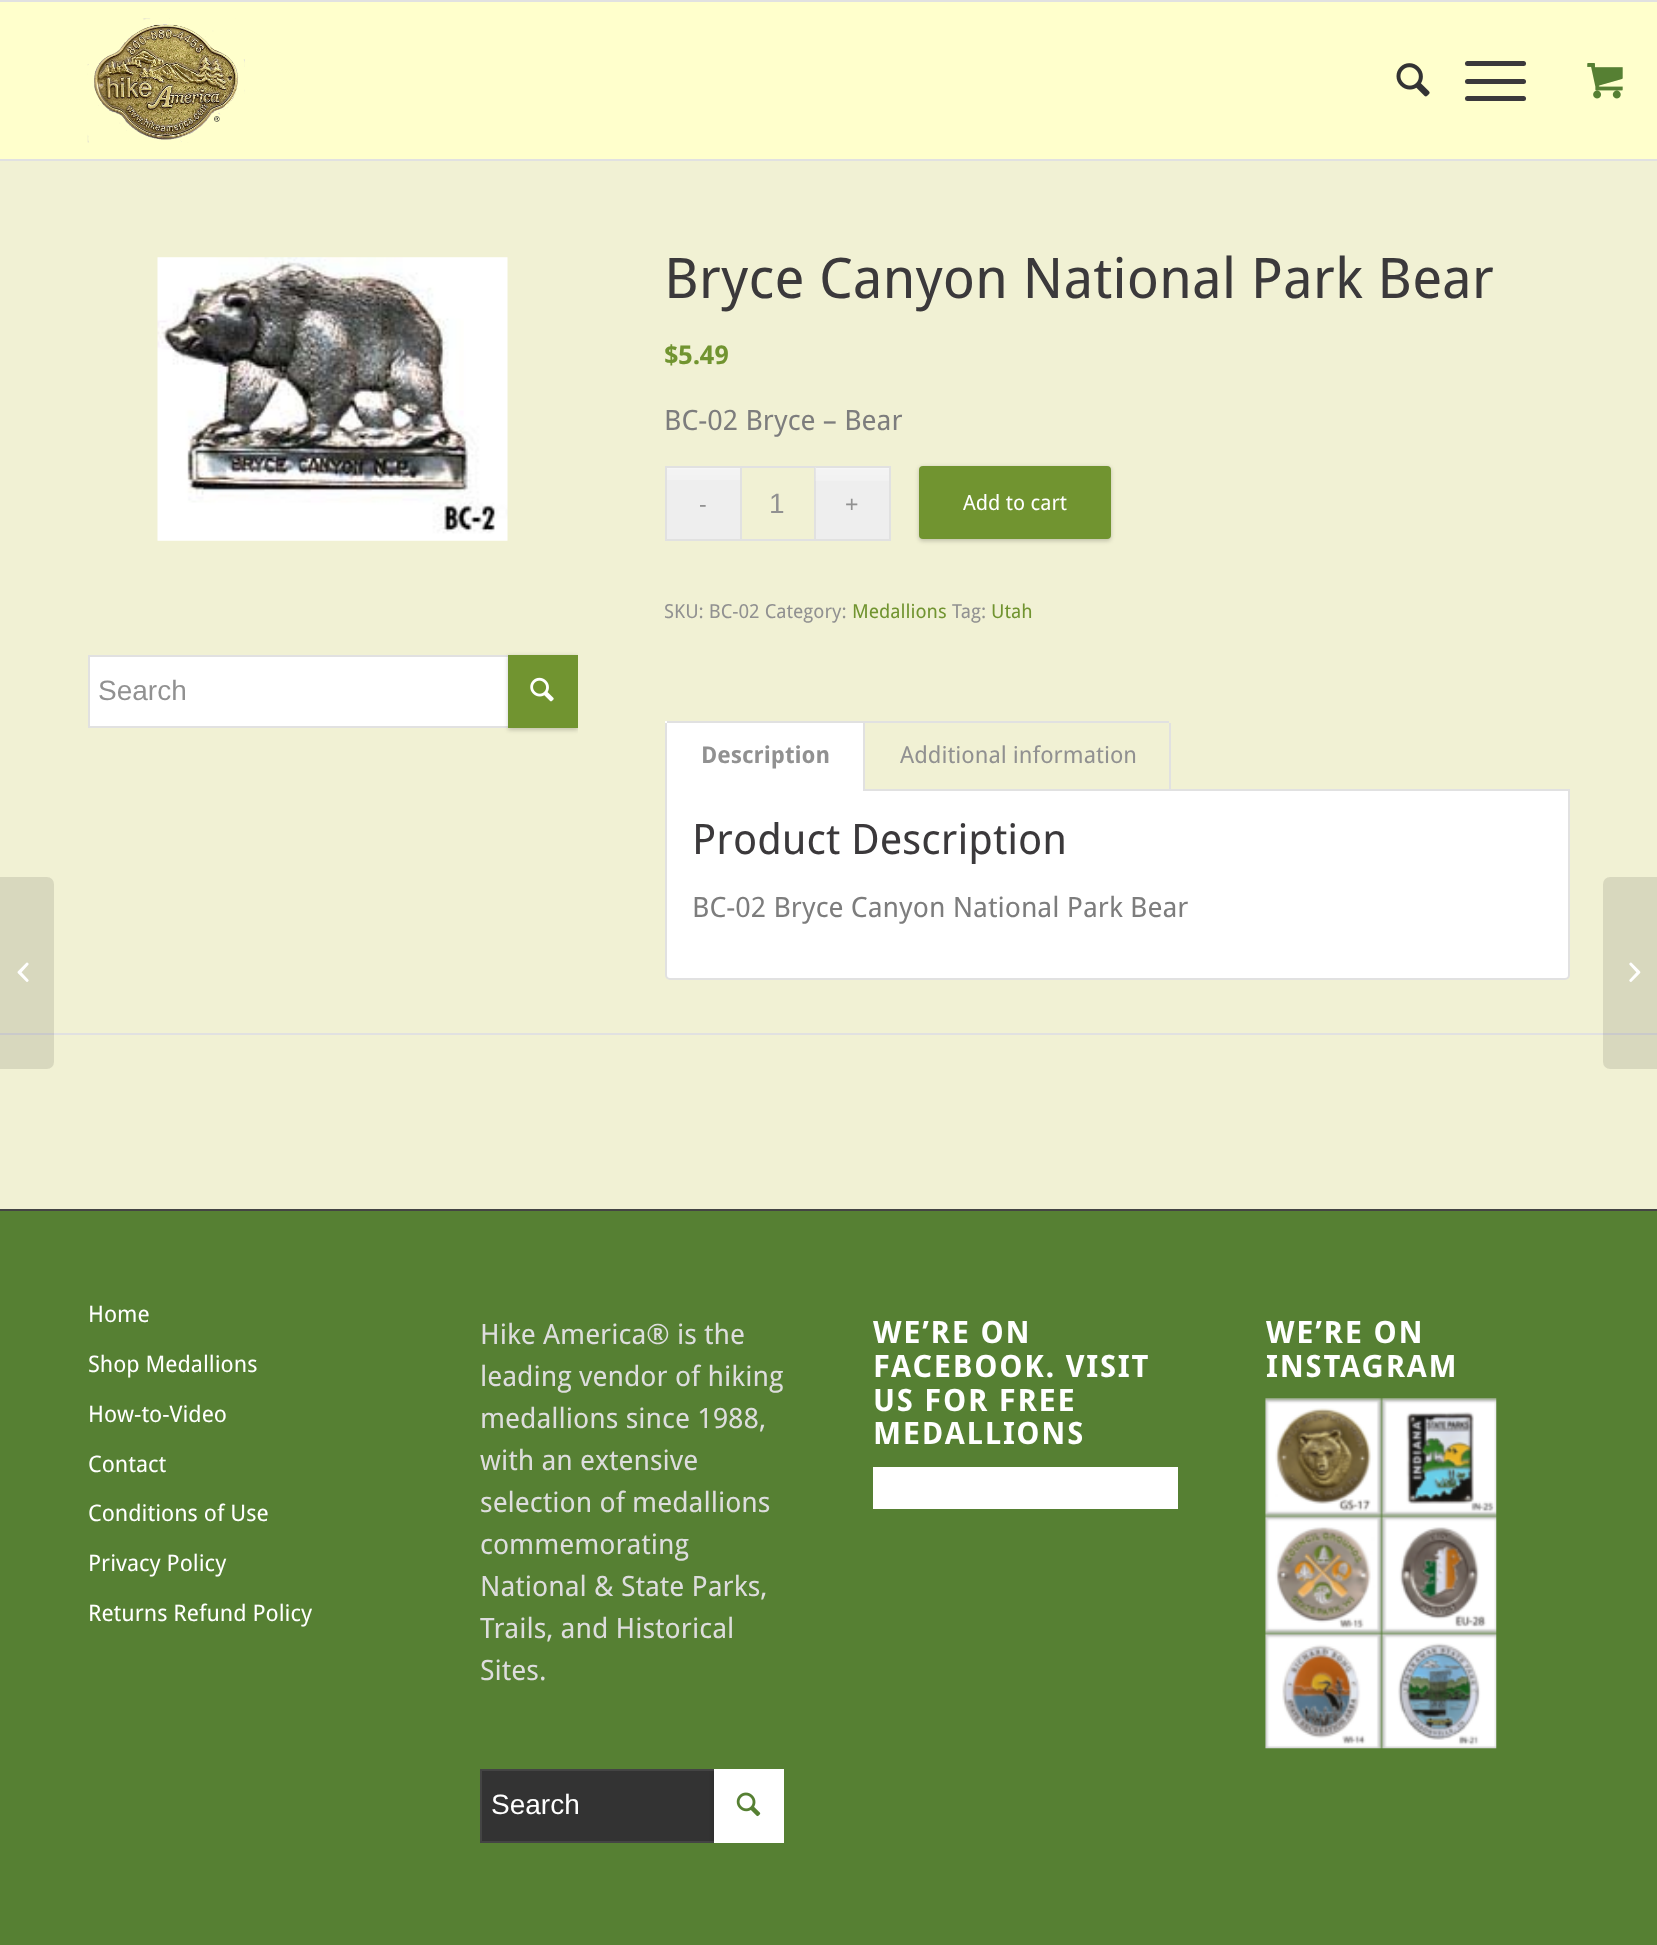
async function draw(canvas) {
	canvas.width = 1657;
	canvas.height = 1945;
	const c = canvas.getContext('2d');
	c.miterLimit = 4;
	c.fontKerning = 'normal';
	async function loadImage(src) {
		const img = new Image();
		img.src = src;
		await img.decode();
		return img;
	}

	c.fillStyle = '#f1f1d4';
	c.fillRect(0, 0, 1657, 1945);
	for (const [x, y, w, h, color] of [
		[0, 0, 1657, 2, '#e1e1e1'],
		[0, 159, 1657, 2, '#e1e1e1'],
		[0, 2, 1657, 157, '#ffc'],
	]) {
		c.fillStyle = color;
		c.fillRect(x, y, w, h);
	}
	c.drawImage(await loadImage('img1.png'), 87, 18, 158, 125);
	c.drawImage(await loadImage('img2.png'), 1396, 63, 34, 34);
	c.fillStyle = '#3b393b';
	c.beginPath();
	c.roundRect(1465, 79, 61, 5, 2.5);
	c.fill();
	c.beginPath();
	c.roundRect(1465, 61, 61, 5, 2.5);
	c.fill();
	c.beginPath();
	c.roundRect(1465, 96, 61, 5, 2.5);
	c.fill();
	c.drawImage(await loadImage('img3.png'), 1587, 63, 36, 36);
	c.fillStyle = '#e1e1e1';
	c.fillRect(0, 1033, 1657, 2);
	c.fillStyle = '#0000001a';
	c.beginPath();
	c.roundRect(0, 877, 54, 192, [0, 7, 7, 0]);
	c.fill();
	c.drawImage(await loadImage('img4.png'), 17, 962, 12, 20);
	c.drawImage(await loadImage('img5.png'), 157, 257, 351, 284);
	c.fillStyle = '#fff';
	c.fillRect(90, 657, 418, 69);
	c.strokeStyle = '#e1e1e1';
	c.lineWidth = 2;
	c.strokeRect(89, 656, 488, 71);
	c.font = '28px Liberation Sans';
	c.fillStyle = '#919191';
	c.fillText('Search', 98, 700);
	c.save();
	c.beginPath();
	c.rect(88, 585, 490, 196);
	c.clip();
	c.fillStyle = '#00000033';
	c.filter = 'blur(2px)';
	c.beginPath();
	c.rect(508, 656, 70, 74);
	c.fill();
	c.filter = 'none';
	c.restore();
	c.fillStyle = '#719430';
	c.fillRect(508, 655, 70, 73);
	c.drawImage(await loadImage('img6.png'), 530, 677, 24, 25);
	c.font = '56px Droid Sans';
	c.fillStyle = '#3b393b';
	c.fillText('Bryce Canyon National Park Bear', 664, 298);
	c.font = 'bold 26px Droid Sans';
	c.fillStyle = '#719430';
	c.fillText('$5.49', 664, 364);
	c.font = '28px Droid Sans';
	c.fillStyle = '#7d7d7d';
	c.fillText('BC-02 Bryce – Bear', 664, 430);
	c.fillStyle = '#eee';
	c.fillRect(667, 468, 73, 71);
	c.drawImage(await loadImage('img7.png'), 667, 468, 73, 12);
	c.strokeRect(741, 467, 74, 73);
	c.fillRect(816, 468, 73, 71);
	c.drawImage(await loadImage('img8.png'), 815, 467, 74, 14);
	c.font = '23px Liberation Sans';
	c.fillStyle = '#919191';
	c.fillText('-', 699, 512);
	for (const [x, y, w, h, color] of [
		[665, 466, 75, 2, '#e1e1e1'],
		[665, 539, 75, 2, '#e1e1e1'],
		[665, 466, 2, 75, '#e1e1e1'],
	]) {
		c.fillStyle = color;
		c.fillRect(x, y, w, h);
	}
	c.font = '28px Liberation Sans';
	c.fillStyle = '#919191';
	c.fillText('1', 769, 513);
	c.font = '23px Liberation Sans';
	c.fillText('+', 845, 512);
	for (const [x, y, w, h, color] of [
		[816, 466, 75, 2, '#e1e1e1'],
		[889, 466, 2, 75, '#e1e1e1'],
		[816, 539, 75, 2, '#e1e1e1'],
	]) {
		c.fillStyle = color;
		c.fillRect(x, y, w, h);
	}
	c.fillStyle = '#00000033';
	c.filter = 'blur(2px)';
	c.beginPath();
	c.roundRect(919, 467, 192, 74, 4);
	c.fill();
	c.filter = 'none';
	c.fillStyle = '#719430';
	c.beginPath();
	c.roundRect(919, 466, 192, 73, 4);
	c.fill();
	c.font = '21px Droid Sans';
	c.fillStyle = '#fff';
	c.fillText('Add to cart', 963, 510);
	c.font = '19.25px Droid Sans';
	c.fillStyle = '#919191';
	c.fillText('SKU: BC-02 Category:', 664, 618);
	c.fillStyle = '#719430';
	c.fillText('Medallions', 852, 618);
	c.fillStyle = '#919191';
	c.fillText('Tag:', 952, 618);
	c.fillStyle = '#719430';
	c.fillText('Utah', 991, 618);
	c.fillStyle = '#fff';
	c.beginPath();
	c.roundRect(666, 790, 903, 189, [0, 0, 4, 4]);
	c.fill();
	c.stroke();
	for (const [x, y, w, h, color] of [
		[665, 721, 198, 70, '#fff'],
		[863, 721, 306, 2, '#e1e1e1'],
		[667, 721, 198, 2, '#e1e1e1'],
		[863, 721, 2, 70, '#e1e1e1'],
		[665, 723, 2, 68, '#e1e1e1'],
	]) {
		c.fillStyle = color;
		c.fillRect(x, y, w, h);
	}
	c.font = 'bold 23.25px Droid Sans';
	c.fillStyle = '#919191';
	c.fillText('Description', 701, 763);
	c.fillStyle = '#e1e1e1';
	c.fillRect(1169, 723, 2, 68);
	c.font = '23.25px Droid Sans';
	c.fillStyle = '#919191';
	c.fillText('Additional information', 900, 763);
	c.font = '42px Droid Sans';
	c.fillStyle = '#3b393b';
	c.fillText('Product Description', 692, 854);
	c.font = '28px Droid Sans';
	c.fillStyle = '#7d7d7d';
	c.fillText('BC-02 Bryce Canyon National Park Bear', 692, 917);
	c.fillStyle = '#568033';
	c.fillRect(0, 1211, 1657, 734);
	c.fillStyle = '#444';
	c.fillRect(0, 1209, 1657, 2);
	c.font = '22.75px Droid Sans';
	c.fillStyle = '#fff';
	for (const [text, x, y] of [
		['Home', 88, 1322],
		['Shop Medallions', 88, 1372],
		['How-to-Video', 88, 1422],
		['Contact', 88, 1472],
		['Conditions of Use', 88, 1521],
		['Privacy Policy', 88, 1571],
		['Returns Refund Policy', 88, 1621],
	]) {
		c.fillText(text, x, y);
	}
	c.font = '28px Droid Sans';
	c.fillStyle = '#ddd';
	for (const [text, x, y] of [
		['Hike America® is the', 480, 1344],
		['leading vendor of hiking', 480, 1386],
		['medallions since 1988,', 480, 1428],
		['with an extensive', 480, 1470],
		['selection of medallions', 480, 1512],
		['commemorating', 480, 1554],
		['National & State Parks,', 480, 1596],
		['Trails, and Historical', 480, 1638],
		['Sites.', 480, 1680],
	]) {
		c.fillText(text, x, y);
	}
	c.fillStyle = '#333';
	c.fillRect(482, 1771, 232, 70);
	c.strokeStyle = '#444';
	c.strokeRect(481, 1770, 302, 72);
	c.font = '28px Liberation Sans';
	c.fillStyle = '#fff';
	c.fillText('Search', 491, 1814);
	c.save();
	c.beginPath();
	c.rect(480, 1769, 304, 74);
	c.clip();
	c.fillStyle = '#00000033';
	c.filter = 'blur(2px)';
	c.beginPath();
	c.rect(714, 1771, 70, 74);
	c.fill();
	c.filter = 'none';
	c.restore();
	c.fillRect(714, 1769, 70, 74);
	c.drawImage(await loadImage('img9.png'), 736, 1792, 25, 25);
	c.letterSpacing = '1.75px';
	c.font = 'bold 30.75px Droid Sans';
	for (const [text, x, y] of [
		['WE’RE ON', 873, 1343],
		['FACEBOOK. VISIT', 873, 1377],
		['US FOR FREE', 873, 1411],
		['MEDALLIONS', 873, 1444],
	]) {
		c.fillText(text, x, y);
	}
	c.fillRect(873, 1467, 305, 42);
	c.fillText('WE’RE ON', 1266, 1343);
	c.fillText('INSTAGRAM', 1266, 1377);
	c.drawImage(await loadImage('img10.png'), 1265, 1398, 232, 351);
	c.fillStyle = '#0000001a';
	c.beginPath();
	c.roundRect(1603, 877, 54, 192, [7, 0, 0, 7]);
	c.fill();
	c.drawImage(await loadImage('img11.png'), 1629, 962, 12, 20);
}

draw(document.querySelector('canvas'));
